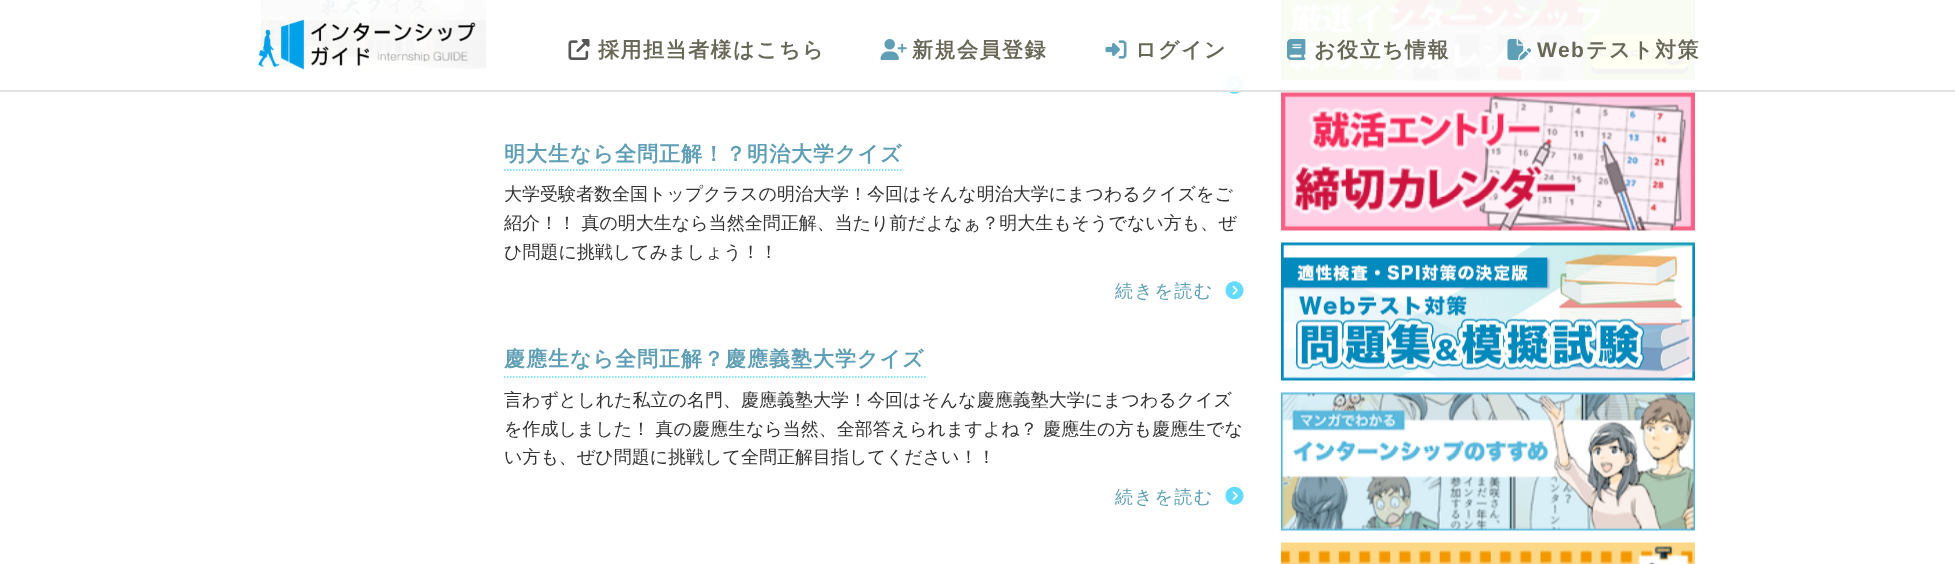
async function draw(canvas) {
	canvas.width = 1955;
	canvas.height = 564;
	const c = canvas.getContext('2d');
	c.miterLimit = 4;
	c.fontKerning = 'normal';
	async function loadImage(src) {
		const img = new Image();
		img.src = src;
		await img.decode();
		return img;
	}

	c.fillStyle = '#fff';
	c.fillRect(0, 0, 1955, 564);
	c.drawImage(await loadImage('img7.png'), 261, 0, 225, 69);
	c.drawImage(await loadImage('img8.png'), 1225, 75, 19, 19);
	c.drawImage(await loadImage('img10.png'), 1281, 0, 414, 81);
	c.fillStyle = '#fffffff2';
	c.fillRect(261, 0, 1434, 90);
	c.fillStyle = '#e2e2e2';
	c.fillRect(0, 90, 1955, 2);
	c.drawImage(await loadImage('img1.png'), 258, 19, 218, 51);
	c.drawImage(await loadImage('img2.png'), 568, 39, 22, 21);
	c.letterSpacing = '1.5px';
	c.font = 'bold 21px WenQuanYi Zen Hei';
	c.fillStyle = '#686859';
	c.fillText('採用担当者様はこちら', 598, 57);
	c.drawImage(await loadImage('img3.png'), 880, 39, 27, 21);
	c.fillText('新規会員登録', 912, 57);
	c.drawImage(await loadImage('img4.png'), 1105, 40, 22, 19);
	c.fillText('ログイン', 1135, 57);
	c.drawImage(await loadImage('img5.png'), 1287, 39, 19, 21);
	c.fillText('お役立ち情報', 1314, 57);
	c.drawImage(await loadImage('img6.png'), 1507, 39, 25, 21);
	c.font = 'bold 21px Liberation Sans';
	c.fillText('Web', 1537, 57);
	c.font = 'bold 21px WenQuanYi Zen Hei';
	c.fillText('テスト対策', 1586, 57);
	c.beginPath();
	c.moveTo(504, 170);
	c.lineTo(903, 170);
	c.strokeStyle = '#63dbff';
	c.lineWidth = 1.5;
	c.setLineDash([1.5, 1.5]);
	c.stroke();
	c.letterSpacing = '1px';
	c.fillStyle = '#5e9fb5';
	c.fillText('明大生なら全問正解！？明治大学クイズ', 504, 161);
	c.letterSpacing = '0px';
	c.font = '500 18px WenQuanYi Zen Hei';
	c.fillStyle = '#333';
	for (const [text, x, y] of [
		['大学受験者数全国トップクラスの明治大学！今回はそんな明治大学にまつわるクイズをご', 504, 200],
		['紹介！！ 真の明大生なら当然全問正解、当たり前だよなぁ？明大生もそうでない方も、ぜ', 504, 229],
		['ひ問題に挑戦してみましょう！！', 504, 258],
	]) {
		c.fillText(text, x, y);
	}
	c.letterSpacing = '1.5px';
	c.fillStyle = '#5e9fb5';
	c.fillText('続きを読む', 1115, 297);
	c.drawImage(await loadImage('img9.png'), 1225, 281, 19, 19);
	c.beginPath();
	c.moveTo(504, 377);
	c.lineTo(925.5, 377);
	c.stroke();
	c.letterSpacing = '1px';
	c.font = 'bold 21px WenQuanYi Zen Hei';
	c.fillText('慶應生なら全問正解？慶應義塾大学クイズ', 504, 366);
	c.letterSpacing = '0px';
	c.font = '500 18px WenQuanYi Zen Hei';
	c.fillStyle = '#333';
	for (const [text, x, y] of [
		['言わずとしれた私立の名門、慶應義塾大学！今回はそんな慶應義塾大学にまつわるクイズ', 504, 406],
		['を作成しました！ 真の慶應生なら当然、全部答えられますよね？ 慶應生の方も慶應生でな', 504, 435],
		['い方も、ぜひ問題に挑戦して全問正解目指してください！！', 504, 463],
	]) {
		c.fillText(text, x, y);
	}
	c.letterSpacing = '1.5px';
	c.fillStyle = '#5e9fb5';
	c.fillText('続きを読む', 1115, 503);
	c.drawImage(await loadImage('img8.png'), 1225, 486, 19, 19);
	c.drawImage(await loadImage('img11.png'), 1281, 92, 414, 139);
	c.drawImage(await loadImage('img12.png'), 1281, 242, 414, 139);
	c.drawImage(await loadImage('img13.png'), 1281, 392, 414, 139);
	c.drawImage(await loadImage('img14.png'), 1281, 542, 414, 22);
}

draw(document.querySelector('canvas'));
